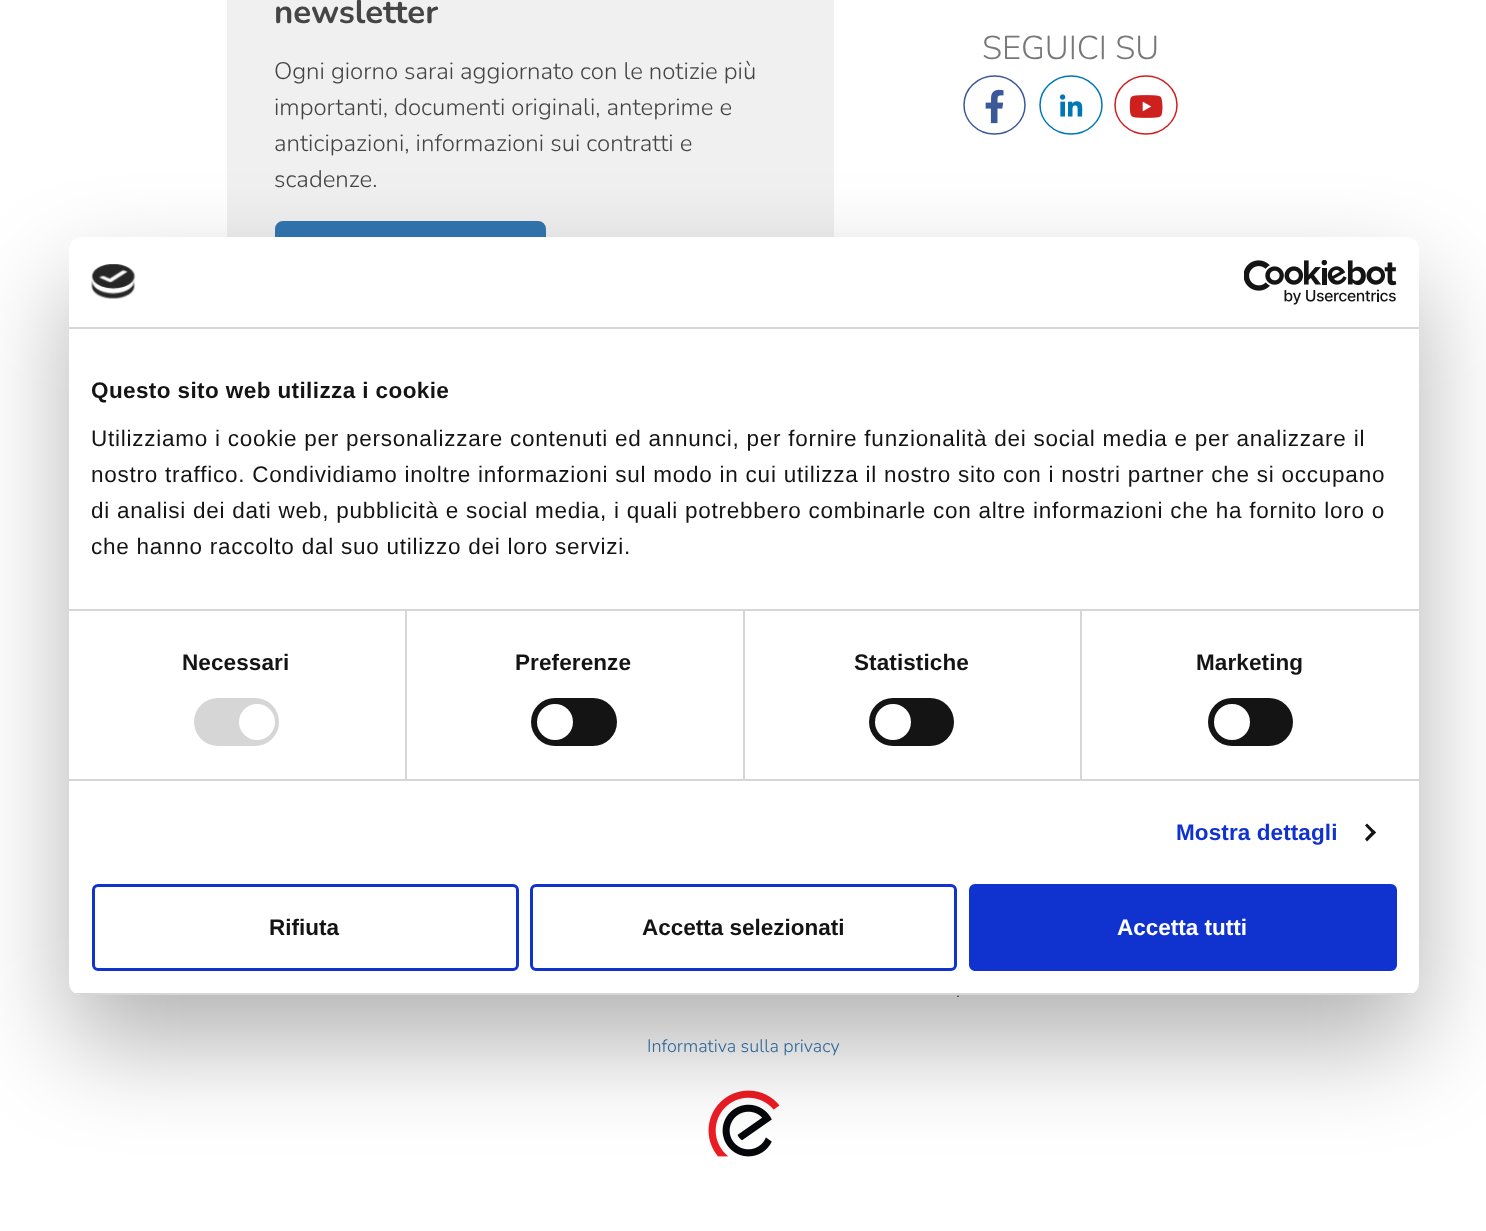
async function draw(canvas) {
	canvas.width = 1486;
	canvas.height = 1231;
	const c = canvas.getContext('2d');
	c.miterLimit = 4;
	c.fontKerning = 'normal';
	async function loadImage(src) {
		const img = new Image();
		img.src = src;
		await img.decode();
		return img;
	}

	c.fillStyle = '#fff';
	c.fillRect(0, 0, 1486, 1231);
	c.fillStyle = '#f0f0f0';
	c.fillRect(227, 0, 607, 237);
	c.font = 'bold 33px Nunito';
	c.fillStyle = '#454545';
	c.fillText('newsletter', 274, 23);
	c.font = '300 24px Nunito';
	for (const [text, x, y] of [
		['Ogni giorno sarai aggiornato con le notizie più', 274, 79],
		['importanti, documenti originali, anteprime e', 274, 115],
		['anticipazioni, informazioni sui contratti e', 274, 151],
		['scadenze.', 274, 187],
	]) {
		c.fillText(text, x, y);
	}
	c.fillStyle = '#3276b1';
	c.beginPath();
	c.roundRect(276, 222, 269, 70, 7);
	c.fill();
	c.strokeStyle = '#3276b1';
	c.lineWidth = 2;
	c.stroke();
	c.font = '300 33px Nunito';
	c.fillStyle = '#787878';
	c.fillText('SEGUICI SU', 982, 59);
	c.beginPath();
	c.moveTo(994.5, 76);
	c.bezierCurveTo(1011.5, 76, 1025, 89, 1025, 105);
	c.bezierCurveTo(1025, 121, 1011.5, 134, 994.5, 134);
	c.bezierCurveTo(977.5, 134, 964, 121, 964, 105);
	c.bezierCurveTo(964, 89, 977.5, 76, 994.5, 76);
	c.closePath();
	c.strokeStyle = '#3b5998';
	c.lineWidth = 1.5;
	c.stroke();
	c.drawImage(await loadImage('img1.png'), 985, 89, 19, 35);
	c.beginPath();
	c.moveTo(1071, 76);
	c.bezierCurveTo(1088, 76, 1102, 89, 1102, 105);
	c.bezierCurveTo(1102, 121, 1088, 134, 1071, 134);
	c.bezierCurveTo(1054, 134, 1040, 121, 1040, 105);
	c.bezierCurveTo(1040, 89, 1054, 76, 1071, 76);
	c.closePath();
	c.strokeStyle = '#0077b5';
	c.stroke();
	c.drawImage(await loadImage('img2.png'), 1059, 94, 24, 23);
	c.beginPath();
	c.moveTo(1146, 76);
	c.bezierCurveTo(1163, 76, 1177, 89, 1177, 105);
	c.bezierCurveTo(1177, 121, 1163, 134, 1146, 134);
	c.bezierCurveTo(1129, 134, 1115, 121, 1115, 105);
	c.bezierCurveTo(1115, 89, 1129, 76, 1146, 76);
	c.closePath();
	c.strokeStyle = '#cd201f';
	c.stroke();
	c.drawImage(await loadImage('img3.png'), 1129, 95, 34, 23);
	c.font = '300 18px Nunito';
	c.fillStyle = '#454545';
	c.fillText('.', 956, 997);
	c.fillStyle = '#3276b1';
	c.fillText('Informativa sulla privacy', 647, 1052);
	c.drawImage(await loadImage('img4.png'), 708, 1090, 72, 67);
	c.fillStyle = '#0000004d';
	c.filter = 'blur(51px)';
	c.beginPath();
	c.roundRect(69, 285, 1350, 758, 12);
	c.fill();
	c.filter = 'none';
	c.fillStyle = '#fff';
	c.beginPath();
	c.roundRect(69, 237, 1350, 758, 12);
	c.fill();
	c.fillStyle = '#d6d6d6';
	c.fillRect(69, 327, 1350, 2);
	c.drawImage(await loadImage('img5.png'), 91, 264, 45, 35);
	c.drawImage(await loadImage('img6.png'), 1244, 260, 153, 45);
	c.fillRect(69, 609, 1350, 2);
	c.letterSpacing = '0.4px';
	c.font = 'bold 22.5px Liberation Sans';
	c.fillStyle = '#141414';
	c.fillText('Questo sito web utilizza i cookie', 91, 398);
	c.letterSpacing = '0.75px';
	c.font = '22.5px Liberation Sans';
	for (const [text, x, y] of [
		['Utilizziamo i cookie per personalizzare contenuti ed annunci, per fornire funzionalità dei social media e per analizzare il', 91, 446],
		['nostro traffico. Condividiamo inoltre informazioni sul modo in cui utilizza il nostro sito con i nostri partner che si occupano', 91, 482],
		['di analisi dei dati web, pubblicità e social media, i quali potrebbero combinarle con altre informazioni che ha fornito loro o', 91, 518],
		['che hanno raccolto dal suo utilizzo dei loro servizi.', 91, 554],
	]) {
		c.fillText(text, x, y);
	}
	c.fillStyle = '#d6d6d6';
	c.fillRect(69, 779, 1350, 2);
	c.fillRect(405, 611, 2, 168);
	c.letterSpacing = '0.1px';
	c.font = 'bold 22.5px Liberation Sans';
	c.fillStyle = '#141414';
	c.fillText('Necessari', 182, 670);
	c.fillStyle = '#d6d6d6';
	c.beginPath();
	c.roundRect(194, 698, 85, 48, 24);
	c.fill();
	c.fillStyle = '#fff';
	c.beginPath();
	c.arc(257, 722, 18, 0, 2 * Math.PI);
	c.fill();
	c.fillStyle = '#d6d6d6';
	c.fillRect(743, 611, 2, 168);
	c.fillStyle = '#141414';
	c.fillText('Preferenze', 515, 670);
	c.beginPath();
	c.roundRect(531, 698, 86, 48, 24);
	c.fill();
	c.fillStyle = '#fff';
	c.beginPath();
	c.arc(555, 722, 18, 0, 2 * Math.PI);
	c.fill();
	c.fillStyle = '#d6d6d6';
	c.fillRect(1080, 611, 2, 168);
	c.fillStyle = '#141414';
	c.fillText('Statistiche', 854, 670);
	c.beginPath();
	c.roundRect(869, 698, 85, 48, 24);
	c.fill();
	c.fillStyle = '#fff';
	c.beginPath();
	c.arc(893, 722, 18, 0, 2 * Math.PI);
	c.fill();
	c.fillStyle = '#141414';
	c.fillText('Marketing', 1196, 670);
	c.beginPath();
	c.roundRect(1208, 698, 85, 48, 24);
	c.fill();
	c.fillStyle = '#fff';
	c.beginPath();
	c.arc(1232, 722, 18, 0, 2 * Math.PI);
	c.fill();
	c.fillStyle = '#1032cf';
	c.fillText('Mostra dettagli', 1176, 840);
	c.fillStyle = '#141414';
	c.beginPath();
	c.moveTo(1367, 823.5);
	c.lineTo(1376, 832.5);
	c.lineTo(1373.5, 834.5);
	c.lineTo(1365, 825.5);
	c.closePath();
	c.fill();
	c.beginPath();
	c.moveTo(1373.5, 830);
	c.lineTo(1376, 832.5);
	c.lineTo(1367, 841.5);
	c.lineTo(1365, 839);
	c.closePath();
	c.fill();
	c.save();
	c.beginPath();
	c.roundRect(69, 237, 1350, 758, 12);
	c.clip();
	c.fillStyle = '#d6d6d6';
	c.fillRect(69, 993, 1350, 2);
	c.restore();
	c.beginPath();
	c.roundRect(93.5, 885.5, 424, 84, 4.5);
	c.strokeStyle = '#1032cf';
	c.lineWidth = 3;
	c.stroke();
	c.letterSpacing = '0px';
	c.fillText('Rifiuta', 269, 935);
	c.beginPath();
	c.roundRect(531.5, 885.5, 424, 84, 4.5);
	c.stroke();
	c.fillText('Accetta selezionati', 642, 935);
	c.fillStyle = '#1032cf';
	c.beginPath();
	c.roundRect(970.5, 885.5, 425, 84, 4.5);
	c.fill();
	c.stroke();
	c.fillStyle = '#fff';
	c.fillText('Accetta tutti', 1117, 935);
}

draw(document.querySelector('canvas'));
